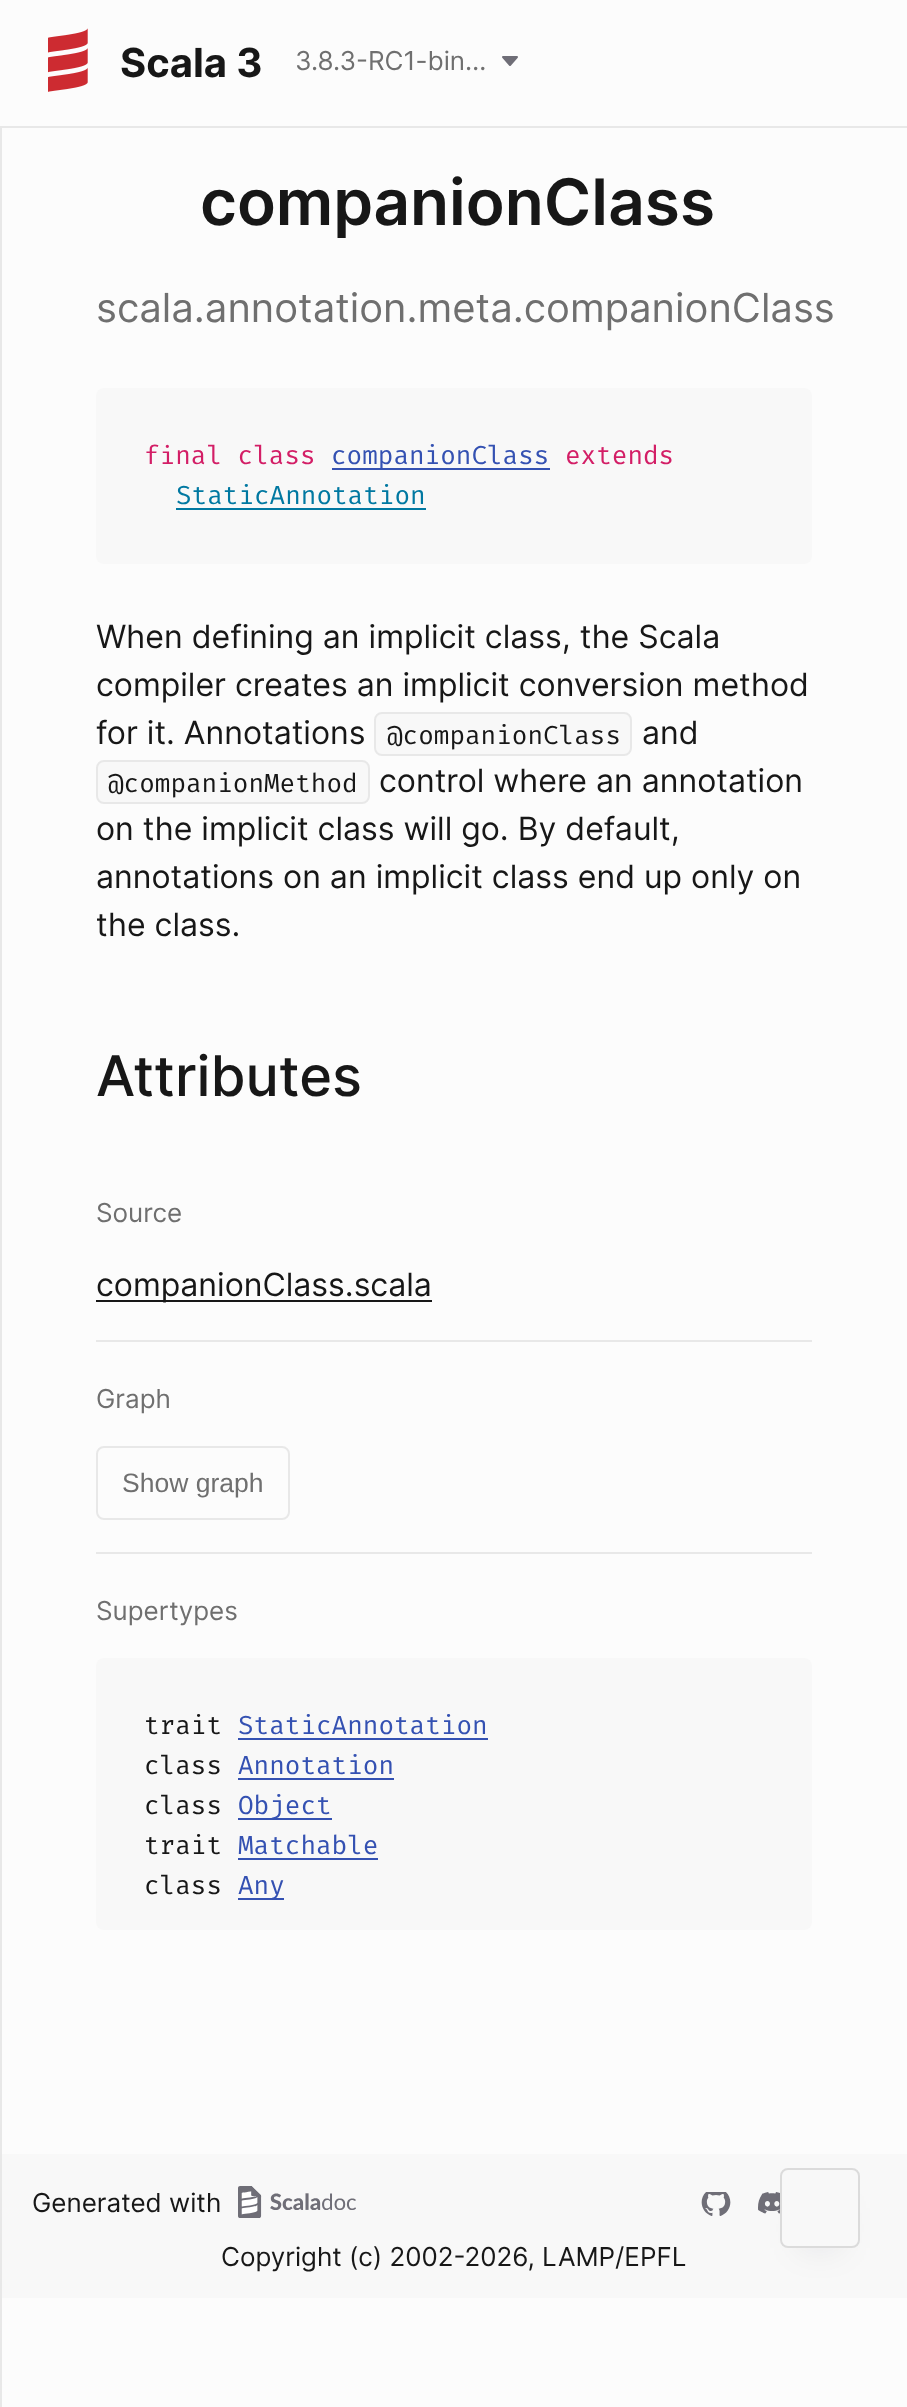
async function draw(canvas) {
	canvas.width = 907;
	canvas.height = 2407;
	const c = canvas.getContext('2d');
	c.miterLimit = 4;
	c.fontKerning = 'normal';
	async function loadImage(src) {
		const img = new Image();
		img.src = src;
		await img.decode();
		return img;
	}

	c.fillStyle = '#fcfcfc';
	c.fillRect(0, 0, 907, 2407);
	c.fillStyle = '#e8e8e8';
	c.fillRect(0, 126, 907, 2);
	c.drawImage(await loadImage('img1.png'), 48, 28, 40, 64);
	c.font = 'bold 40px Inter';
	c.fillStyle = '#171717';
	c.fillText('Scala 3', 120, 77);
	c.font = '26px Inter';
	c.fillStyle = '#6f6f6f';
	c.fillText('3.8.3-RC1-bin…', 295, 70);
	c.drawImage(await loadImage('img2.png'), 502, 56, 16, 10);
	c.fillStyle = '#e8e8e8';
	c.fillRect(0, 128, 2, 2279);
	c.font = '600 64px Inter';
	c.fillStyle = '#171717';
	c.fillText('companionClass', 200, 225);
	c.font = '40px Inter';
	c.fillStyle = '#6f6f6f';
	c.fillText('scala.annotation.meta.companionClass', 96, 322);
	c.fillStyle = '#f8f8f8';
	c.beginPath();
	c.roundRect(96, 388, 716, 176, 8);
	c.fill();
	c.font = '26px Fira Code';
	c.fillStyle = '#d31e66';
	c.fillText('final class', 144, 464);
	c.fillStyle = '#3451b2';
	c.fillRect(332, 468, 218, 2);
	c.fillText('companionClass', 331, 464);
	c.fillStyle = '#d31e66';
	c.fillText('extends', 565, 464);
	c.fillStyle = '#0078a1';
	c.fillText('StaticAnnotation', 176, 504);
	c.fillRect(176, 508, 250, 2);
	c.font = '32px Inter';
	c.fillStyle = '#171717';
	for (const [text, x, y] of [
		['When defining an implicit class, the Scala', 96, 648],
		['compiler creates an implicit conversion method', 96, 696],
		['for it. Annotations', 96, 744],
	]) {
		c.fillText(text, x, y);
	}
	c.fillStyle = '#f8f8f8';
	c.beginPath();
	c.roundRect(375, 713, 256, 42, 7);
	c.fill();
	c.strokeStyle = '#e8e8e8';
	c.lineWidth = 2;
	c.stroke();
	c.font = '26px Fira Code';
	c.fillStyle = '#171717';
	c.fillText('@companionClass', 387, 744);
	c.font = '32px Inter';
	c.fillText('and', 642, 744);
	c.fillStyle = '#f8f8f8';
	c.beginPath();
	c.roundRect(97, 761, 272, 42, 7);
	c.fill();
	c.stroke();
	c.font = '26px Fira Code';
	c.fillStyle = '#171717';
	c.fillText('@companionMethod', 108, 792);
	c.font = '32px Inter';
	for (const [text, x, y] of [
		['control where an annotation', 379, 792],
		['on the implicit class will go. By default,', 96, 840],
		['annotations on an implicit class end up only on', 96, 888],
		['the class.', 96, 936],
	]) {
		c.fillText(text, x, y);
	}
	c.font = '500 56px Inter';
	c.fillText('Attributes', 96, 1096);
	c.font = '26px Inter';
	c.fillStyle = '#6f6f6f';
	c.fillText('Source', 96, 1222);
	c.fillStyle = '#171717';
	c.fillRect(96, 1300, 336, 2);
	c.font = '32px Inter';
	c.fillText('companionClass.scala', 96, 1296);
	c.fillStyle = '#e8e8e8';
	c.fillRect(96, 1340, 716, 2);
	c.font = '26px Inter';
	c.fillStyle = '#6f6f6f';
	c.fillText('Graph', 96, 1408);
	c.beginPath();
	c.roundRect(97, 1447, 192, 72, 7);
	c.stroke();
	c.font = '26.5px Liberation Sans';
	c.fillText('Show graph', 122, 1492);
	c.fillStyle = '#e8e8e8';
	c.fillRect(96, 1552, 716, 2);
	c.font = '26px Inter';
	c.fillStyle = '#6f6f6f';
	c.fillText('Supertypes', 96, 1620);
	c.fillStyle = '#f8f8f8';
	c.beginPath();
	c.roundRect(96, 1658, 716, 272, 8);
	c.fill();
	c.font = '26px Fira Code';
	c.fillStyle = '#171717';
	c.fillText('trait', 144, 1734);
	c.fillStyle = '#3451b2';
	c.fillText('StaticAnnotation', 238, 1734);
	c.fillRect(238, 1738, 250, 2);
	c.fillStyle = '#171717';
	c.fillText('class', 144, 1774);
	c.fillStyle = '#3451b2';
	c.fillText('Annotation', 238, 1774);
	c.fillRect(238, 1778, 156, 2);
	c.fillStyle = '#171717';
	c.fillText('class', 144, 1814);
	c.fillStyle = '#3451b2';
	c.fillRect(238, 1818, 94, 2);
	c.fillText('Object', 238, 1814);
	c.fillStyle = '#171717';
	c.fillText('trait', 144, 1854);
	c.fillStyle = '#3451b2';
	c.fillText('Matchable', 238, 1854);
	c.fillRect(238, 1858, 140, 2);
	c.fillStyle = '#171717';
	c.fillText('class', 144, 1894);
	c.fillStyle = '#3451b2';
	c.fillRect(238, 1898, 46, 2);
	c.fillText('Any', 238, 1894);
	c.fillStyle = '#f8f8f8';
	c.fillRect(2, 2154, 905, 144);
	c.font = '26px Inter';
	c.fillStyle = '#171717';
	c.fillText('Generated with', 32, 2212);
	c.drawImage(await loadImage('img3.png'), 238, 2186, 118, 32);
	c.drawImage(await loadImage('img4.png'), 701, 2192, 30, 24);
	c.drawImage(await loadImage('img5.png'), 758, 2192, 22, 22);
	c.fillText('Copyright (c) 2002-2026, LAMP/EPFL', 221, 2266);
	c.fillStyle = '#0e121659';
	c.filter = 'blur(20px)';
	c.beginPath();
	c.rect(810, 2218, 20, 20);
	c.fill();
	c.filter = 'none';
	c.fillStyle = '#f8f8f8';
	c.beginPath();
	c.roundRect(781, 2169, 78, 78, 7);
	c.fill();
	c.strokeStyle = '#dbdbdb';
	c.stroke();
}

draw(document.querySelector('canvas'));
